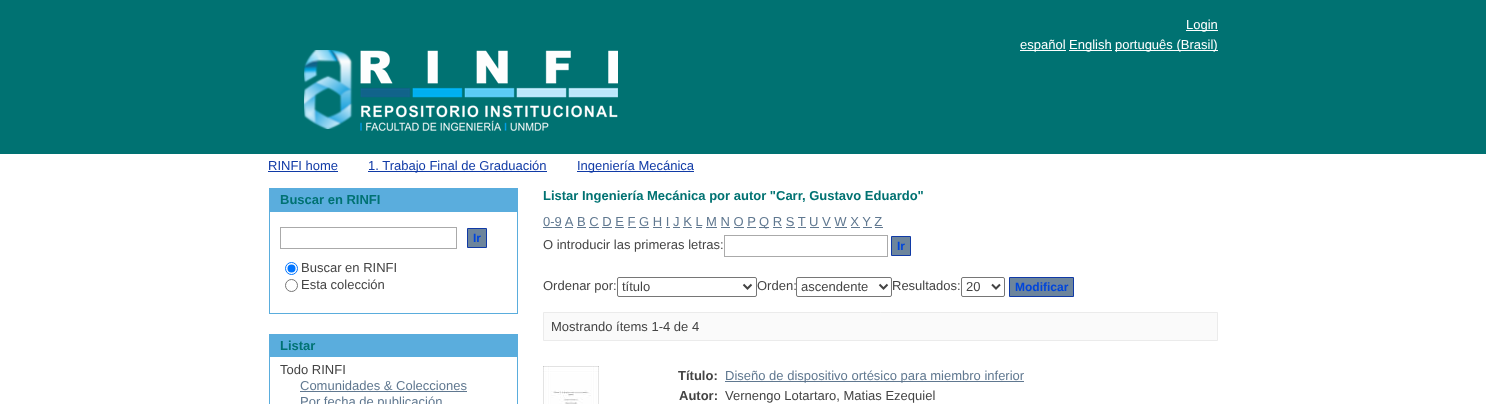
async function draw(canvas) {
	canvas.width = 1486;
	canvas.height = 404;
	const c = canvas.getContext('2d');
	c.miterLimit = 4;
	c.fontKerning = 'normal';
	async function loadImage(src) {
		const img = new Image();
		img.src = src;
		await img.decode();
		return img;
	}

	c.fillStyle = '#fff';
	c.fillRect(0, 0, 1486, 404);
	c.fillStyle = '#007272';
	c.fillRect(0, 0, 1486, 154);
	c.fillStyle = '#fff';
	c.fillRect(1186, 30, 32, 1);
	c.font = '13px Liberation Sans';
	c.fillText('Login', 1186, 29);
	c.fillRect(1020, 50, 46, 1);
	c.fillText('español', 1020, 49);
	c.fillRect(1069, 50, 43, 1);
	c.fillText('English', 1069, 49);
	c.fillRect(1115, 50, 103, 1);
	c.fillText('português (Brasil)', 1115, 49);
	c.drawImage(await loadImage('img1.png'), 304, 50, 314, 81);
	c.fillStyle = '#103aa6';
	c.fillText('RINFI home', 268, 170);
	c.fillRect(268, 171, 70, 1);
	c.fillRect(368, 171, 179, 1);
	c.fillText('1. Trabajo Final de Graduación', 368, 170);
	c.fillRect(577, 171, 117, 1);
	c.fillText('Ingeniería Mecánica', 577, 170);
	c.fillStyle = '#5aaddd';
	c.fillRect(269, 188, 249, 24);
	c.font = 'bold 13px Liberation Sans';
	c.fillStyle = '#007272';
	c.fillText('Buscar en RINFI', 280, 204);
	for (const [x, y, w, h, color] of [
		[517, 212, 1, 102, '#5aaddd'],
		[269, 313, 249, 1, '#5aaddd'],
		[269, 212, 1, 102, '#5aaddd'],
	]) {
		c.fillStyle = color;
		c.fillRect(x, y, w, h);
	}
	c.strokeStyle = '#aaa';
	c.strokeRect(280.5, 227.5, 176, 21);
	c.fillStyle = '#6d859c';
	c.beginPath();
	c.rect(467.5, 228.5, 19, 19);
	c.fill();
	c.strokeStyle = '#103aa6';
	c.stroke();
	c.font = 'bold 12px Liberation Sans';
	c.fillStyle = '#0045db';
	c.fillText('Ir', 473, 242);
	c.beginPath();
	c.arc(291.5, 268.5, 6, 0, 2 * Math.PI);
	c.strokeStyle = '#0075ff';
	c.stroke();
	c.fillStyle = '#0075ff';
	c.beginPath();
	c.arc(291.5, 268.5, 4, 0, 2 * Math.PI);
	c.fill();
	c.font = '13px Liberation Sans';
	c.fillStyle = '#444';
	c.fillText('Buscar en RINFI', 301, 272);
	c.beginPath();
	c.arc(291.5, 285.5, 6, 0, 2 * Math.PI);
	c.strokeStyle = '#767676';
	c.stroke();
	c.fillText('Esta colección', 301, 289);
	c.fillStyle = '#5aaddd';
	c.fillRect(269, 334, 249, 23);
	c.font = 'bold 13px Liberation Sans';
	c.fillStyle = '#007272';
	c.fillText('Listar', 280, 350);
	c.fillStyle = '#5aaddd';
	c.fillRect(517, 357, 1, 47);
	c.fillRect(269, 357, 1, 47);
	c.font = '13px Liberation Sans';
	c.fillStyle = '#444';
	c.fillText('Todo RINFI', 280, 374);
	c.fillStyle = '#607890';
	c.fillText('Comunidades & Colecciones', 300, 390);
	c.fillRect(300, 391, 167, 1);
	c.fillText('Por fecha de publicación', 300, 406);
	c.font = 'bold 13px Liberation Sans';
	c.fillStyle = '#007272';
	c.fillText('Listar Ingeniería Mecánica por autor "Carr, Gustavo Eduardo"', 543, 200);
	c.font = '13px Liberation Sans';
	c.fillStyle = '#607890';
	c.fillText('0-9 A', 543, 226);
	c.fillRect(543, 227, 19, 1);
	c.fillText('B C D E F G H I J K L', 577, 226);
	c.fillRect(577, 227, 9, 1);
	c.fillText('M N O P', 706, 226);
	c.fillRect(706, 227, 11, 1);
	c.fillRect(759, 227, 10, 1);
	c.fillText('Q R S T U V W X Y Z', 759, 226);
	for (const [x, y, w, h, color] of [
		[565, 227, 8, 1, '#607890'],
		[589, 227, 10, 1, '#607890'],
		[602, 227, 10, 1, '#607890'],
		[615, 227, 9, 1, '#607890'],
		[628, 227, 8, 1, '#607890'],
		[639, 227, 10, 1, '#607890'],
		[653, 227, 9, 1, '#607890'],
		[666, 227, 4, 1, '#607890'],
		[673, 227, 7, 1, '#607890'],
		[683, 227, 9, 1, '#607890'],
		[696, 227, 6, 1, '#607890'],
		[721, 227, 9, 1, '#607890'],
		[734, 227, 10, 1, '#607890'],
		[747, 227, 9, 1, '#607890'],
		[773, 227, 9, 1, '#607890'],
		[786, 227, 9, 1, '#607890'],
		[798, 227, 8, 1, '#607890'],
		[810, 227, 9, 1, '#607890'],
		[823, 227, 8, 1, '#607890'],
		[835, 227, 12, 1, '#607890'],
		[851, 227, 9, 1, '#607890'],
		[863, 227, 9, 1, '#607890'],
		[875, 227, 8, 1, '#607890'],
	]) {
		c.fillStyle = color;
		c.fillRect(x, y, w, h);
	}
	c.fillStyle = '#444';
	c.fillText('O introducir las primeras letras:', 543, 249);
	c.strokeStyle = '#aaa';
	c.strokeRect(724.5, 235.5, 163, 21);
	c.fillStyle = '#6d859c';
	c.beginPath();
	c.rect(891.5, 236.5, 19, 19);
	c.fill();
	c.strokeStyle = '#103aa6';
	c.stroke();
	c.font = 'bold 12px Liberation Sans';
	c.fillStyle = '#0045db';
	c.fillText('Ir', 897, 250);
	c.font = '13px Liberation Sans';
	c.fillStyle = '#444';
	c.fillText('Ordenar por:', 543, 290);
	c.beginPath();
	c.roundRect(617.5, 277.5, 139, 19, 1.5);
	c.strokeStyle = '#767676';
	c.stroke();
	c.beginPath();
	c.moveTo(743.5, 284.5);
	c.lineTo(747.5, 288.5);
	c.lineTo(751.5, 284.5);
	c.strokeStyle = '#444';
	c.lineWidth = 2;
	c.stroke();
	c.fillText('título', 622, 291);
	c.fillText('Orden:', 757, 290);
	c.beginPath();
	c.roundRect(796.5, 277.5, 95, 19, 1.5);
	c.strokeStyle = '#767676';
	c.lineWidth = 1;
	c.stroke();
	c.beginPath();
	c.moveTo(879.5, 284.5);
	c.lineTo(883.5, 288.5);
	c.lineTo(887.5, 284.5);
	c.strokeStyle = '#444';
	c.lineWidth = 2;
	c.stroke();
	c.fillText('ascendente', 801, 291);
	c.fillText('Resultados:', 892, 290);
	c.beginPath();
	c.roundRect(961.5, 277.5, 43, 19, 1.5);
	c.strokeStyle = '#767676';
	c.lineWidth = 1;
	c.stroke();
	c.beginPath();
	c.moveTo(992, 284.5);
	c.lineTo(996, 288.5);
	c.lineTo(1000, 284.5);
	c.strokeStyle = '#444';
	c.lineWidth = 2;
	c.stroke();
	c.fillText('20', 966, 291);
	c.fillStyle = '#6d859c';
	c.beginPath();
	c.rect(1009.5, 277.5, 64, 19);
	c.fill();
	c.strokeStyle = '#103aa6';
	c.lineWidth = 1;
	c.stroke();
	c.font = 'bold 12px Liberation Sans';
	c.fillStyle = '#0045db';
	c.fillText('Modificar', 1015, 291);
	c.fillStyle = '#fafafa';
	c.beginPath();
	c.rect(543.5, 312.5, 674, 28);
	c.fill();
	c.strokeStyle = '#ebebeb';
	c.stroke();
	c.font = '13px Liberation Sans';
	c.fillStyle = '#444';
	c.fillText('Mostrando ítems 1-4 de 4', 551, 331);
	c.drawImage(await loadImage('img2.png'), 543, 366, 56, 38);
	c.font = 'bold 13px Liberation Sans';
	c.fillText('Título:', 678, 380);
	c.fillStyle = '#607890';
	c.fillRect(725, 381, 299, 1);
	c.font = '13px Liberation Sans';
	c.fillText('Diseño de dispositivo ortésico para miembro inferior', 725, 380);
	c.font = 'bold 13px Liberation Sans';
	c.fillStyle = '#444';
	c.fillText('Autor:', 679, 400);
	c.font = '13px Liberation Sans';
	c.fillText('Vernengo Lotartaro, Matias Ezequiel', 725, 400);
}

draw(document.querySelector('canvas'));
